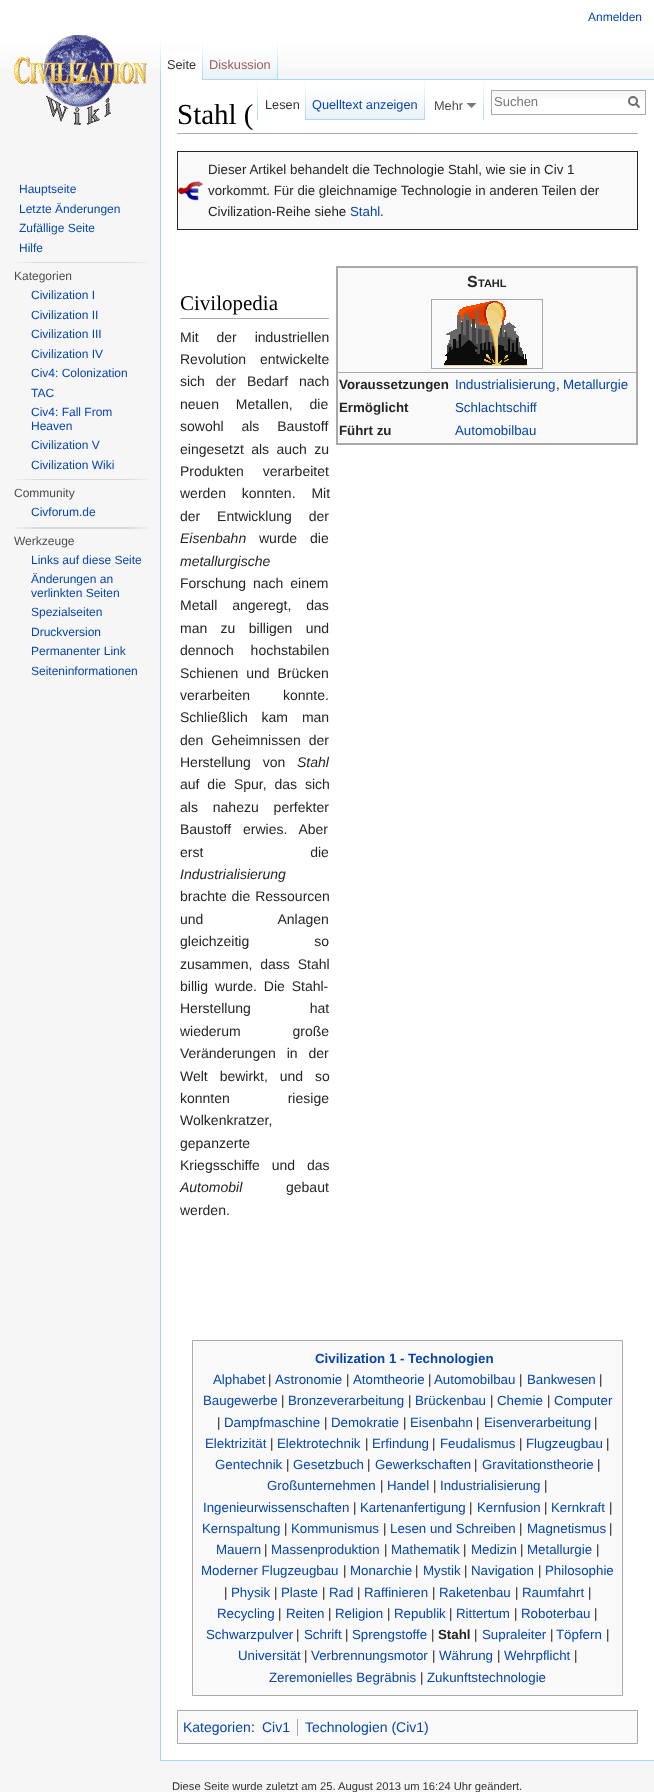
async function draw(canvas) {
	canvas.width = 654;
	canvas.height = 1792;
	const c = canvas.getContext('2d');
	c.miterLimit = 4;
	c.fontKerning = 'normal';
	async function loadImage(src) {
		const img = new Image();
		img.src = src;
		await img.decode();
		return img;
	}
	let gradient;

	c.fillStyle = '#f6f6f6';
	c.fillRect(0, 0, 654, 1792);
	gradient = c.createLinearGradient(327, 0, 327, 80);
	gradient.addColorStop(0.5, '#fff');
	gradient.addColorStop(1, '#f6f6f6');
	c.fillStyle = gradient;
	c.fillRect(0, 0, 654, 69);
	c.font = '12px Liberation Sans';
	c.fillStyle = '#0645ad';
	c.fillText('Anmelden', 588, 21);
	c.drawImage(await loadImage('img1.png'), 160, 40, 1, 39);
	c.fillStyle = '#fff';
	c.fillRect(161, 51, 41, 29);
	c.drawImage(await loadImage('img2.png'), 202, 40, 1, 40);
	c.font = '12.75px Liberation Sans';
	c.fillStyle = '#333';
	c.fillText('Seite', 167, 69);
	c.drawImage(await loadImage('img3.png'), 203, 40, 75, 40);
	c.drawImage(await loadImage('img4.png'), 277, 40, 1, 39);
	c.fillStyle = '#a55858';
	c.fillText('Diskussion', 209, 69);
	c.fillStyle = '#fff';
	c.fillRect(161, 80, 493, 1680);
	c.drawImage(await loadImage('img5.png'), 257, 80, 1, 40);
	c.drawImage(await loadImage('img2.png'), 305, 80, 1, 40);
	c.fillStyle = '#333';
	c.fillText('Lesen', 265, 109);
	c.drawImage(await loadImage('img6.png'), 306, 80, 119, 40);
	c.drawImage(await loadImage('img4.png'), 424, 80, 1, 39);
	c.fillStyle = '#0645ad';
	c.fillText('Quelltext anzeigen', 312, 109);
	c.drawImage(await loadImage('img5.png'), 483, 80, 1, 40);
	c.fillStyle = '#4d4d4d';
	c.fillText('Mehr', 434, 110);
	c.fillStyle = '#797979';
	c.beginPath();
	c.moveTo(476.5, 103);
	c.lineTo(471.5, 108);
	c.lineTo(466.5, 103);
	c.closePath();
	c.fill();
	c.drawImage(await loadImage('img7.png'), 492, 91, 153, 8);
	c.strokeStyle = '#aaa';
	c.strokeRect(491.5, 90.5, 154, 24);
	c.font = '13px Liberation Sans';
	c.fillStyle = '#757575';
	c.fillText('Suchen', 494, 106);
	c.beginPath();
	c.moveTo(639.5, 107.5);
	c.lineTo(635.5, 103.5);
	c.strokeStyle = '#6c6c6c';
	c.lineWidth = 2;
	c.stroke();
	c.beginPath();
	c.arc(633, 101, 4, 0, 2 * Math.PI);
	c.stroke();
	c.drawImage(await loadImage('img8.png'), 14, 35, 133, 90);
	c.font = '12px Liberation Sans';
	c.fillStyle = '#0645ad';
	for (const [text, x, y] of [
		['Hauptseite', 19, 193],
		['Letzte Änderungen', 19, 213],
		['Zufällige Seite', 19, 232],
		['Hilfe', 19, 252],
	]) {
		c.fillText(text, x, y);
	}
	c.drawImage(await loadImage('img9.png'), 14, 262, 135, 1);
	c.fillStyle = '#4d4d4d';
	c.fillText('Kategorien', 14, 280);
	c.fillStyle = '#0645ad';
	for (const [text, x, y] of [
		['Civilization I', 31, 299],
		['Civilization II', 31, 319],
		['Civilization III', 31, 338],
		['Civilization IV', 31, 358],
		['Civ4: Colonization', 31, 377],
		['TAC', 31, 397],
		['Civ4: Fall From', 31, 416],
		['Heaven', 31, 430],
		['Civilization V', 31, 449],
		['Civilization Wiki', 31, 469],
	]) {
		c.fillText(text, x, y);
	}
	c.drawImage(await loadImage('img9.png'), 14, 479, 135, 1);
	c.fillStyle = '#4d4d4d';
	c.fillText('Community', 14, 497);
	c.fillStyle = '#0645ad';
	c.fillText('Civforum.de', 31, 516);
	c.drawImage(await loadImage('img10.png'), 14, 527, 135, 2);
	c.fillStyle = '#4d4d4d';
	c.fillText('Werkzeuge', 14, 545);
	c.fillStyle = '#0645ad';
	for (const [text, x, y] of [
		['Links auf diese Seite', 31, 564],
		['Änderungen an', 31, 583],
		['verlinkten Seiten', 31, 597],
		['Spezialseiten', 31, 616],
		['Druckversion', 31, 636],
		['Permanenter Link', 31, 655],
		['Seiteninformationen', 31, 675],
	]) {
		c.fillText(text, x, y);
	}
	for (const [x, y, w, h, color] of [
		[278, 79, 376, 1, '#a7d7f9'],
		[160, 1760, 494, 1, '#a7d7f9'],
		[160, 79, 1, 1682, '#a7d7f9'],
		[177, 133, 461, 1, '#aaa'],
	]) {
		c.fillStyle = color;
		c.fillRect(x, y, w, h);
	}
	c.font = '29px Liberation Serif';
	c.fillStyle = '#000';
	c.fillText('Stahl (', 177, 124);
	for (const [x, y, w, h, color] of [
		[178, 152, 459, 77, '#f9f9f9'],
		[177, 151, 461, 1, '#252525'],
		[637, 151, 1, 79, '#252525'],
		[177, 229, 461, 1, '#252525'],
		[177, 151, 1, 79, '#252525'],
	]) {
		c.fillStyle = color;
		c.fillRect(x, y, w, h);
	}
	c.drawImage(await loadImage('img11.png'), 178, 181, 25, 20);
	c.font = '13.3px Liberation Sans';
	for (const [text, x, y] of [
		['Dieser Artikel behandelt die Technologie Stahl, wie sie in Civ 1', 208, 174],
		['vorkommt. Für die gleichnamige Technologie in anderen Teilen der', 208, 195],
		['Civilization-Reihe siehe', 208, 216],
	]) {
		c.fillText(text, x, y);
	}
	c.fillStyle = '#0645ad';
	c.fillText('Stahl', 350, 216);
	c.fillStyle = '#252525';
	c.fillText('.', 380, 216);
	c.fillStyle = '#aaa';
	c.fillRect(180, 318, 149, 1);
	c.font = '21px Liberation Serif';
	c.fillStyle = '#000';
	c.fillText('Civilopedia', 180, 310);
	c.wordSpacing = '14px';
	c.font = '14px Liberation Sans';
	c.fillStyle = '#252525';
	c.fillText('Mit der industriellen', 180, 342);
	c.wordSpacing = '10px';
	c.fillText('Revolution entwickelte', 180, 364);
	c.wordSpacing = '7px';
	c.fillText('sich der Bedarf nach', 180, 386);
	c.wordSpacing = '13px';
	c.fillText('neuen Metallen, die', 180, 409);
	c.wordSpacing = '14px';
	c.fillText('sowohl als Baustoff', 180, 431);
	c.wordSpacing = '3.5px';
	c.fillText('eingesetzt als auch zu', 180, 454);
	c.wordSpacing = '15px';
	c.fillText('Produkten verarbeitet', 180, 476);
	c.wordSpacing = '12px';
	c.fillText('werden konnten. Mit', 180, 498);
	c.wordSpacing = '13px';
	c.fillText('der Entwicklung der', 180, 521);
	c.wordSpacing = '0px';
	c.font = 'italic 14px Liberation Sans';
	c.fillText('Eisenbahn', 180, 543);
	c.wordSpacing = '9px';
	c.font = '14px Liberation Sans';
	c.fillText('wurde die', 259, 543);
	c.wordSpacing = '0px';
	c.font = 'italic 14px Liberation Sans';
	c.fillText('metallurgische', 180, 566);
	c.wordSpacing = '3px';
	c.font = '14px Liberation Sans';
	c.fillText('Forschung nach einem', 180, 588);
	c.wordSpacing = '11px';
	c.fillText('Metall angeregt, das', 180, 610);
	c.wordSpacing = '9.5px';
	c.fillText('man zu billigen und', 180, 633);
	c.wordSpacing = '13px';
	c.fillText('dennoch hochstabilen', 180, 655);
	c.wordSpacing = '4px';
	c.fillText('Schienen und Brücken', 180, 678);
	c.wordSpacing = '29px';
	c.fillText('verarbeiten konnte.', 180, 700);
	c.wordSpacing = '10px';
	c.fillText('Schließlich kam man', 180, 722);
	c.wordSpacing = '4px';
	c.fillText('den Geheimnissen der', 180, 745);
	c.wordSpacing = '8px';
	c.fillText('Herstellung von', 180, 767);
	c.wordSpacing = '0px';
	c.font = 'italic 14px Liberation Sans';
	c.fillText('Stahl', 297, 767);
	c.wordSpacing = '4px';
	c.font = '14px Liberation Sans';
	c.fillText('auf die Spur, das sich', 180, 789);
	c.wordSpacing = '11px';
	c.fillText('als nahezu perfekter', 180, 812);
	c.wordSpacing = '8px';
	c.fillText('Baustoff erwies. Aber', 180, 834);
	c.wordSpacing = '103px';
	c.fillText('erst die', 180, 857);
	c.wordSpacing = '0px';
	c.font = 'italic 14px Liberation Sans';
	c.fillText('Industrialisierung', 180, 879);
	c.wordSpacing = '1px';
	c.font = '14px Liberation Sans';
	c.fillText('brachte die Ressourcen', 180, 901);
	c.wordSpacing = '71px';
	c.fillText('und Anlagen', 180, 924);
	c.wordSpacing = '61px';
	c.fillText('gleichzeitig so', 180, 946);
	c.wordSpacing = '4px';
	c.fillText('zusammen, dass Stahl', 180, 969);
	c.wordSpacing = '3px';
	c.fillText('billig wurde. Die Stahl-', 180, 991);
	c.wordSpacing = '55px';
	c.fillText('Herstellung hat', 180, 1013);
	c.wordSpacing = '48px';
	c.fillText('wiederum große', 180, 1036);
	c.wordSpacing = '7px';
	c.fillText('Veränderungen in der', 180, 1058);
	c.wordSpacing = '8px';
	c.fillText('Welt bewirkt, und so', 180, 1081);
	c.wordSpacing = '54px';
	c.fillText('konnten riesige', 180, 1103);
	c.wordSpacing = '0px';
	c.fillText('Wolkenkratzer,', 180, 1125);
	c.fillText('gepanzerte', 180, 1148);
	c.wordSpacing = '8px';
	c.fillText('Kriegsschiffe und das', 180, 1170);
	c.wordSpacing = '0px';
	c.font = 'italic 14px Liberation Sans';
	c.fillText('Automobil', 180, 1192);
	c.font = '14px Liberation Sans';
	c.fillText('gebaut', 286, 1192);
	c.fillText('werden.', 180, 1215);
	c.strokeStyle = '#a8a8a8';
	c.lineWidth = 1;
	c.strokeRect(336.5, 266.5, 301, 178);
	for (const [x, y, w, h, color] of [
		[338, 268, 298, 175, '#f9f9f9'],
		[337, 267, 300, 1, '#aaa'],
		[636, 267, 1, 177, '#aaa'],
		[337, 443, 300, 1, '#aaa'],
		[337, 267, 1, 177, '#aaa'],
	]) {
		c.fillStyle = color;
		c.fillRect(x, y, w, h);
	}
	c.font = 'bold 16px Liberation Sans';
	c.fillStyle = '#252525';
	c.fillText('S', 467, 287);
	c.font = 'bold 11px Liberation Sans';
	c.fillText('TAHL', 478, 287);
	c.fillStyle = '#a8a8a8';
	c.fillRect(337, 372, 300, 1);
	c.strokeRect(431.5, 299.5, 111, 69);
	c.drawImage(await loadImage('img12.png'), 444, 301, 83, 65);
	c.font = 'bold 13.3px Liberation Sans';
	c.fillStyle = '#252525';
	c.fillText('Voraussetzungen', 339, 389);
	c.font = '13.3px Liberation Sans';
	c.fillStyle = '#0645ad';
	c.fillText('Industrialisierung', 455, 389);
	c.fillStyle = '#252525';
	c.fillText(',', 556, 389);
	c.fillStyle = '#0645ad';
	c.fillText('Metallurgie', 563, 389);
	c.font = 'bold 13.3px Liberation Sans';
	c.fillStyle = '#252525';
	c.fillText('Ermöglicht', 339, 412);
	c.font = '13.3px Liberation Sans';
	c.fillStyle = '#0645ad';
	c.fillText('Schlachtschiff', 455, 412);
	c.font = 'bold 13.3px Liberation Sans';
	c.fillStyle = '#252525';
	c.fillText('Führt zu', 339, 435);
	c.font = '13.3px Liberation Sans';
	c.fillStyle = '#0645ad';
	c.fillText('Automobilbau', 455, 435);
	c.fillStyle = '#f9f9f9';
	c.beginPath();
	c.rect(192.5, 1340.5, 430, 355);
	c.fill();
	c.strokeStyle = '#aaa';
	c.stroke();
	c.font = 'bold 13.3px Liberation Sans';
	c.fillStyle = '#0645ad';
	c.fillText('Civilization 1 - Technologien', 315, 1363);
	c.font = '13.3px Liberation Sans';
	c.fillText('Alphabet', 213, 1384);
	c.fillStyle = '#252525';
	c.fillText('|', 268, 1384);
	c.fillStyle = '#0645ad';
	c.fillText('Astronomie', 275, 1384);
	c.fillStyle = '#252525';
	c.fillText('|', 346, 1384);
	c.fillStyle = '#0645ad';
	c.fillText('Atomtheorie', 353, 1384);
	c.fillStyle = '#252525';
	c.fillText('|', 428, 1384);
	c.fillStyle = '#0645ad';
	c.fillText('Automobilbau', 434, 1384);
	c.fillStyle = '#252525';
	c.fillText('|', 519, 1384);
	c.fillStyle = '#0645ad';
	c.fillText('Bankwesen', 527, 1384);
	c.fillStyle = '#252525';
	c.fillText('|', 599, 1384);
	c.fillStyle = '#0645ad';
	c.fillText('Baugewerbe', 203, 1405);
	c.fillStyle = '#252525';
	c.fillText('|', 281, 1405);
	c.fillStyle = '#0645ad';
	c.fillText('Bronzeverarbeitung', 288, 1405);
	c.fillStyle = '#252525';
	c.fillText('|', 408, 1405);
	c.fillStyle = '#0645ad';
	c.fillText('Brückenbau', 415, 1405);
	c.fillStyle = '#252525';
	c.fillText('|', 490, 1405);
	c.fillStyle = '#0645ad';
	c.fillText('Chemie', 497, 1405);
	c.fillStyle = '#252525';
	c.fillText('|', 547, 1405);
	c.fillStyle = '#0645ad';
	c.fillText('Computer', 554, 1405);
	c.fillStyle = '#252525';
	c.fillText('|', 217, 1427);
	c.fillStyle = '#0645ad';
	c.fillText('Dampfmaschine', 224, 1427);
	c.fillStyle = '#252525';
	c.fillText('|', 324, 1427);
	c.fillStyle = '#0645ad';
	c.fillText('Demokratie', 331, 1427);
	c.fillStyle = '#252525';
	c.fillText('|', 403, 1427);
	c.fillStyle = '#0645ad';
	c.fillText('Eisenbahn', 410, 1427);
	c.fillStyle = '#252525';
	c.fillText('|', 476, 1427);
	c.fillStyle = '#0645ad';
	c.fillText('Eisenverarbeitung', 484, 1427);
	c.fillStyle = '#252525';
	c.fillText('|', 594, 1427);
	c.fillStyle = '#0645ad';
	c.fillText('Elektrizität', 205, 1448);
	c.fillStyle = '#252525';
	c.fillText('|', 270, 1448);
	c.fillStyle = '#0645ad';
	c.fillText('Elektrotechnik', 277, 1448);
	c.fillStyle = '#252525';
	c.fillText('|', 365, 1448);
	c.fillStyle = '#0645ad';
	c.fillText('Erfindung', 372, 1448);
	c.fillStyle = '#252525';
	c.fillText('|', 432, 1448);
	c.fillStyle = '#0645ad';
	c.fillText('Feudalismus', 440, 1448);
	c.fillStyle = '#252525';
	c.fillText('|', 519, 1448);
	c.fillStyle = '#0645ad';
	c.fillText('Flugzeugbau', 526, 1448);
	c.fillStyle = '#252525';
	c.fillText('|', 606, 1448);
	c.fillStyle = '#0645ad';
	c.fillText('Gentechnik', 215, 1469);
	c.fillStyle = '#252525';
	c.fillText('|', 286, 1469);
	c.fillStyle = '#0645ad';
	c.fillText('Gesetzbuch', 293, 1469);
	c.fillStyle = '#252525';
	c.fillText('|', 367, 1469);
	c.fillStyle = '#0645ad';
	c.fillText('Gewerkschaften', 375, 1469);
	c.fillStyle = '#252525';
	c.fillText('|', 474, 1469);
	c.fillStyle = '#0645ad';
	c.fillText('Gravitationstheorie', 482, 1469);
	c.fillStyle = '#252525';
	c.fillText('|', 597, 1469);
	c.fillStyle = '#0645ad';
	c.fillText('Großunternehmen', 267, 1490);
	c.fillStyle = '#252525';
	c.fillText('|', 380, 1490);
	c.fillStyle = '#0645ad';
	c.fillText('Handel', 387, 1490);
	c.fillStyle = '#252525';
	c.fillText('|', 433, 1490);
	c.fillStyle = '#0645ad';
	c.fillText('Industrialisierung', 440, 1490);
	c.fillStyle = '#252525';
	c.fillText('|', 544, 1490);
	c.fillStyle = '#0645ad';
	c.fillText('Ingenieurwissenschaften', 203, 1512);
	c.fillStyle = '#252525';
	c.fillText('|', 353, 1512);
	c.fillStyle = '#0645ad';
	c.fillText('Kartenanfertigung', 360, 1512);
	c.fillStyle = '#252525';
	c.fillText('|', 469, 1512);
	c.fillStyle = '#0645ad';
	c.fillText('Kernfusion', 477, 1512);
	c.fillStyle = '#252525';
	c.fillText('|', 544, 1512);
	c.fillStyle = '#0645ad';
	c.fillText('Kernkraft', 551, 1512);
	c.fillStyle = '#252525';
	c.fillText('|', 609, 1512);
	c.fillStyle = '#0645ad';
	c.fillText('Kernspaltung', 202, 1533);
	c.fillStyle = '#252525';
	c.fillText('|', 284, 1533);
	c.fillStyle = '#0645ad';
	c.fillText('Kommunismus', 291, 1533);
	c.fillStyle = '#252525';
	c.fillText('|', 383, 1533);
	c.fillStyle = '#0645ad';
	c.fillText('Lesen und Schreiben', 390, 1533);
	c.fillStyle = '#252525';
	c.fillText('|', 519, 1533);
	c.fillStyle = '#0645ad';
	c.fillText('Magnetismus', 527, 1533);
	c.fillStyle = '#252525';
	c.fillText('|', 609, 1533);
	c.fillStyle = '#0645ad';
	c.fillText('Mauern', 216, 1554);
	c.fillStyle = '#252525';
	c.fillText('|', 264, 1554);
	c.fillStyle = '#0645ad';
	c.fillText('Massenproduktion', 271, 1554);
	c.fillStyle = '#252525';
	c.fillText('|', 384, 1554);
	c.fillStyle = '#0645ad';
	c.fillText('Mathematik', 391, 1554);
	c.fillStyle = '#252525';
	c.fillText('|', 463, 1554);
	c.fillStyle = '#0645ad';
	c.fillText('Medizin', 471, 1554);
	c.fillStyle = '#252525';
	c.fillText('|', 520, 1554);
	c.fillStyle = '#0645ad';
	c.fillText('Metallurgie', 527, 1554);
	c.fillStyle = '#252525';
	c.fillText('|', 596, 1554);
	c.fillStyle = '#0645ad';
	c.fillText('Moderner Flugzeugbau', 201, 1575);
	c.fillStyle = '#252525';
	c.fillText('|', 343, 1575);
	c.fillStyle = '#0645ad';
	c.fillText('Monarchie', 350, 1575);
	c.fillStyle = '#252525';
	c.fillText('|', 415, 1575);
	c.fillStyle = '#0645ad';
	c.fillText('Mystik', 423, 1575);
	c.fillStyle = '#252525';
	c.fillText('|', 464, 1575);
	c.fillStyle = '#0645ad';
	c.fillText('Navigation', 471, 1575);
	c.fillStyle = '#252525';
	c.fillText('|', 538, 1575);
	c.fillStyle = '#0645ad';
	c.fillText('Philosophie', 545, 1575);
	c.fillStyle = '#252525';
	c.fillText('|', 224, 1597);
	c.fillStyle = '#0645ad';
	c.fillText('Physik', 231, 1597);
	c.fillStyle = '#252525';
	c.fillText('|', 274, 1597);
	c.fillStyle = '#0645ad';
	c.fillText('Plaste', 281, 1597);
	c.fillStyle = '#252525';
	c.fillText('|', 322, 1597);
	c.fillStyle = '#0645ad';
	c.fillText('Rad', 329, 1597);
	c.fillStyle = '#252525';
	c.fillText('|', 357, 1597);
	c.fillStyle = '#0645ad';
	c.fillText('Raffinieren', 364, 1597);
	c.fillStyle = '#252525';
	c.fillText('|', 432, 1597);
	c.fillStyle = '#0645ad';
	c.fillText('Raketenbau', 439, 1597);
	c.fillStyle = '#252525';
	c.fillText('|', 515, 1597);
	c.fillStyle = '#0645ad';
	c.fillText('Raumfahrt', 522, 1597);
	c.fillStyle = '#252525';
	c.fillText('|', 588, 1597);
	c.fillStyle = '#0645ad';
	c.fillText('Recycling', 217, 1618);
	c.fillStyle = '#252525';
	c.fillText('|', 278, 1618);
	c.fillStyle = '#0645ad';
	c.fillText('Reiten', 286, 1618);
	c.fillStyle = '#252525';
	c.fillText('|', 328, 1618);
	c.fillStyle = '#0645ad';
	c.fillText('Religion', 335, 1618);
	c.fillStyle = '#252525';
	c.fillText('|', 387, 1618);
	c.fillStyle = '#0645ad';
	c.fillText('Republik', 394, 1618);
	c.fillStyle = '#252525';
	c.fillText('|', 449, 1618);
	c.fillStyle = '#0645ad';
	c.fillText('Rittertum', 456, 1618);
	c.fillStyle = '#252525';
	c.fillText('|', 514, 1618);
	c.fillStyle = '#0645ad';
	c.fillText('Roboterbau', 521, 1618);
	c.fillStyle = '#252525';
	c.fillText('|', 594, 1618);
	c.fillStyle = '#0645ad';
	c.fillText('Schwarzpulver', 206, 1639);
	c.fillStyle = '#252525';
	c.fillText('|', 296, 1639);
	c.fillStyle = '#0645ad';
	c.fillText('Schrift', 304, 1639);
	c.fillStyle = '#252525';
	c.fillText('|', 345, 1639);
	c.fillStyle = '#0645ad';
	c.fillText('Sprengstoffe', 352, 1639);
	c.fillStyle = '#252525';
	c.fillText('|', 431, 1639);
	c.font = 'bold 13.3px Liberation Sans';
	c.fillText('Stahl', 438, 1639);
	c.font = '13.3px Liberation Sans';
	c.fillText('|', 474, 1639);
	c.fillStyle = '#0645ad';
	c.fillText('Supraleiter', 482, 1639);
	c.fillStyle = '#252525';
	c.fillText('|', 550, 1639);
	c.fillStyle = '#0645ad';
	c.fillText('Töpfern', 556, 1639);
	c.fillStyle = '#252525';
	c.fillText('|', 606, 1639);
	c.fillStyle = '#0645ad';
	c.fillText('Universität', 238, 1660);
	c.fillStyle = '#252525';
	c.fillText('|', 304, 1660);
	c.fillStyle = '#0645ad';
	c.fillText('Verbrennungsmotor', 311, 1660);
	c.fillStyle = '#252525';
	c.fillText('|', 432, 1660);
	c.fillStyle = '#0645ad';
	c.fillText('Währung', 439, 1660);
	c.fillStyle = '#252525';
	c.fillText('|', 497, 1660);
	c.fillStyle = '#0645ad';
	c.fillText('Wehrpflicht', 504, 1660);
	c.fillStyle = '#252525';
	c.fillText('|', 574, 1660);
	c.fillStyle = '#0645ad';
	c.fillText('Zeremonielles Begräbnis', 269, 1682);
	c.fillStyle = '#252525';
	c.fillText('|', 420, 1682);
	c.fillStyle = '#0645ad';
	c.fillText('Zukunftstechnologie', 427, 1682);
	c.fillStyle = '#f9f9f9';
	c.beginPath();
	c.rect(177.5, 1710.5, 460, 33);
	c.fill();
	c.stroke();
	c.font = '14px Liberation Sans';
	c.fillStyle = '#0645ad';
	c.fillText('Kategorien', 183, 1732);
	c.fillStyle = '#252525';
	c.fillText(':', 251, 1732);
	c.fillStyle = '#0645ad';
	c.fillText('Civ1', 262, 1732);
	c.fillStyle = '#aaa';
	c.fillRect(297, 1719, 1, 17);
	c.fillStyle = '#0645ad';
	c.fillText('Technologien (Civ1)', 305, 1732);
	c.font = '11.2px Liberation Sans';
	c.fillStyle = '#333';
	c.fillText('Diese Seite wurde zuletzt am 25. August 2013 um 16:24 Uhr geändert.', 172, 1790);
}

draw(document.querySelector('canvas'));
